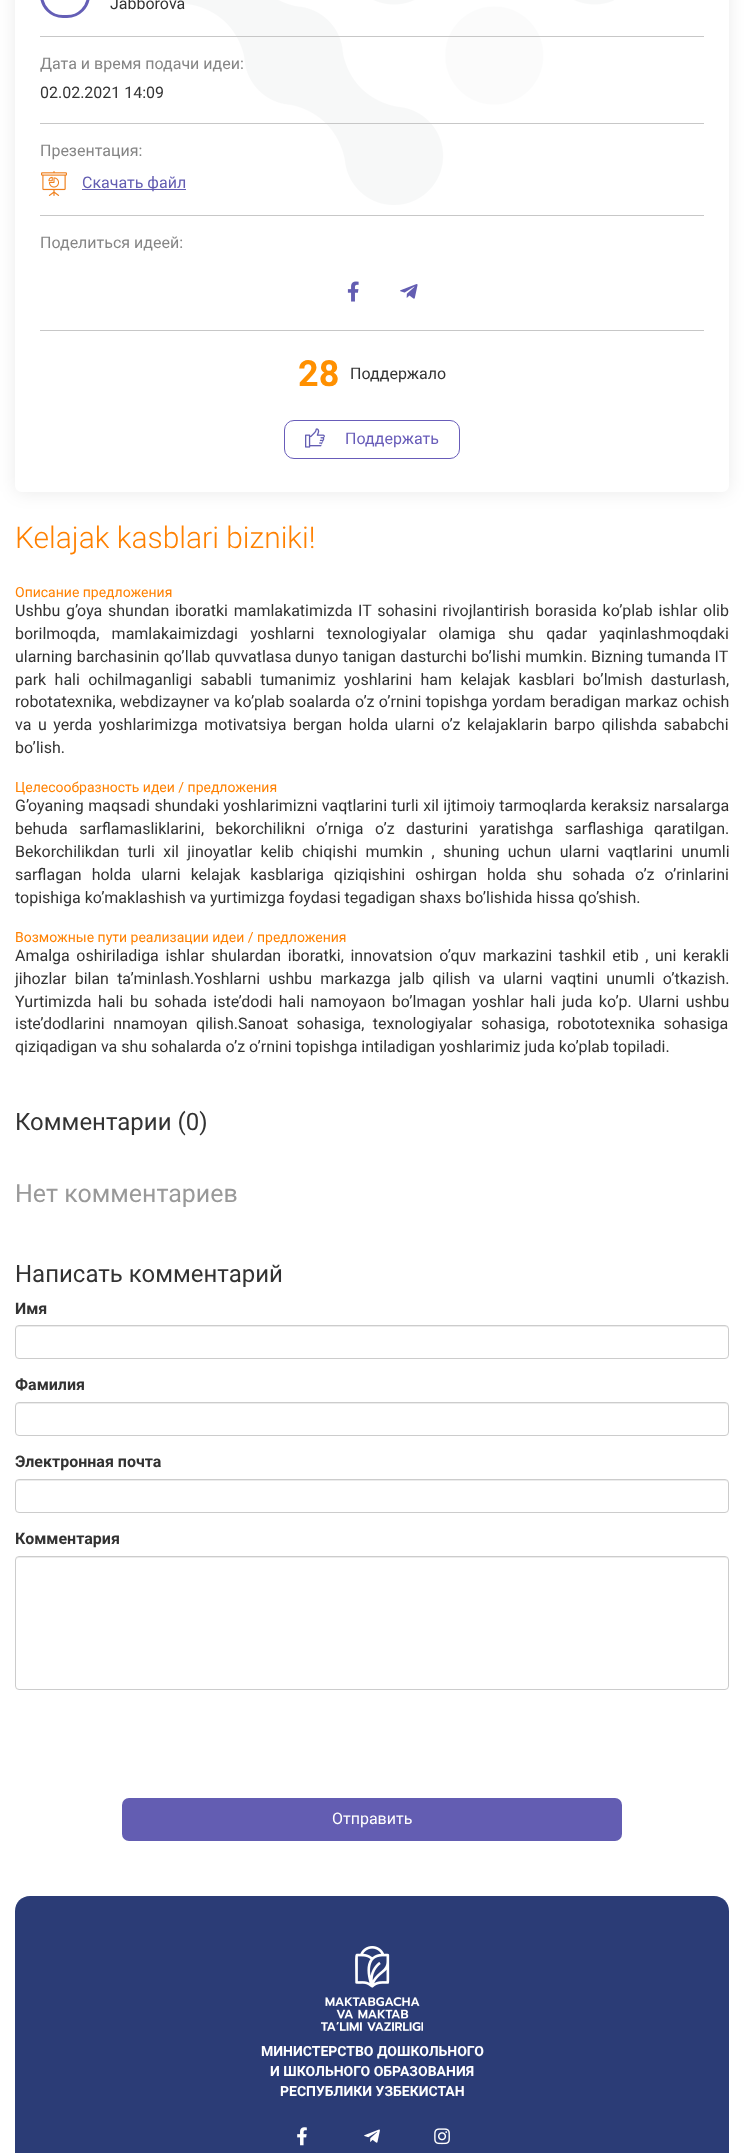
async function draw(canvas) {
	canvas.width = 744;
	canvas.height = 2153;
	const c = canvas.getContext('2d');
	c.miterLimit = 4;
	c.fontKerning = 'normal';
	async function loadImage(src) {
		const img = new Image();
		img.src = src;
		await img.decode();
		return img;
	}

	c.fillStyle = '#fff';
	c.fillRect(0, 0, 744, 2153);
	c.drawImage(await loadImage('img5.png'), 174, 0, 440, 205);
	c.save();
	c.beginPath();
	c.moveTo(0, 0);
	c.lineTo(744, 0);
	c.lineTo(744, 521);
	c.lineTo(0, 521);
	c.closePath();
	c.moveTo(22, -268);
	c.lineTo(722, -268);
	c.bezierCurveTo(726, -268, 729, -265, 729, -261);
	c.lineTo(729, 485);
	c.bezierCurveTo(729, 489, 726, 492, 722, 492);
	c.lineTo(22, 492);
	c.bezierCurveTo(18, 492, 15, 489, 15, 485);
	c.lineTo(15, -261);
	c.bezierCurveTo(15, -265, 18, -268, 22, -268);
	c.closePath();
	c.clip('evenodd');
	c.fillStyle = '#00000014';
	c.filter = 'blur(9px)';
	c.beginPath();
	c.roundRect(15, -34, 714, 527, 7);
	c.fill();
	c.filter = 'none';
	c.restore();
	c.fillStyle = '#c7c7c7';
	c.fillRect(40, 36, 664, 1);
	c.beginPath();
	c.roundRect(41.5, -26.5, 47, 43, 23.5);
	c.strokeStyle = '#645eb6';
	c.lineWidth = 3;
	c.stroke();
	c.font = '16px Roboto';
	c.fillStyle = '#333';
	c.fillText('Jabborova', 110, 9);
	c.fillStyle = '#c7c7c7';
	c.fillRect(40, 123, 664, 1);
	c.fillStyle = '#858585';
	c.fillText('Дата и время подачи идеи:', 40, 69);
	c.fillStyle = '#333';
	c.fillText('02.02.2021 14:09', 40, 98);
	c.fillStyle = '#c7c7c7';
	c.fillRect(40, 215, 664, 1);
	c.fillStyle = '#858585';
	c.fillText('Презентация:', 40, 156);
	c.drawImage(await loadImage('img1.png'), 41, 171, 26, 25);
	c.fillStyle = '#635db2';
	c.fillRect(82, 189, 104, 1);
	c.fillText('Скачать файл', 82, 188);
	c.fillStyle = '#c7c7c7';
	c.fillRect(40, 330, 664, 1);
	c.fillStyle = '#858585';
	c.fillText('Поделиться идеей:', 40, 248);
	c.drawImage(await loadImage('img2.png'), 347, 281, 12, 21);
	c.drawImage(await loadImage('img3.png'), 400, 284, 18, 15);
	c.font = 'bold 36px Roboto';
	c.fillStyle = '#ff9000';
	c.fillText('28', 298, 386);
	c.font = '16px Roboto';
	c.fillStyle = '#333';
	c.fillText('Поддержало', 350, 379);
	c.beginPath();
	c.roundRect(284.5, 420.5, 175, 38, 9.5);
	c.strokeStyle = '#685cb9';
	c.lineWidth = 1;
	c.stroke();
	c.drawImage(await loadImage('img4.png'), 305, 428, 20, 20);
	c.fillStyle = '#685cb9';
	c.fillText('Поддержать', 345, 444);
	c.font = '300 30px Roboto';
	c.fillStyle = '#ff8000';
	c.fillText('Kelajak kasblari bizniki!', 15, 548);
	c.font = '14px Roboto';
	c.fillText('Описание предложения', 15, 597);
	c.wordSpacing = '1.75px';
	c.font = '16px Roboto';
	c.fillStyle = '#333';
	c.fillText('Ushbu g’oya shundan iboratki mamlakatimizda IT sohasini rivojlantirish borasida ko’plab ishlar olib', 15, 616);
	c.wordSpacing = '8.25px';
	c.fillText('borilmoqda, mamlakaimizdagi yoshlarni texnologiyalar olamiga shu qadar yaqinlashmoqdaki', 15, 639);
	c.wordSpacing = '0.5px';
	c.fillText('ularning barchasinin qo’llab quvvatlasa', 15, 662);
	c.fillText('dunyo tanigan dasturchi bo’lishi mumkin.', 295, 662);
	c.wordSpacing = '0px';
	c.fillText('Bizning tumanda IT', 591, 662);
	c.wordSpacing = '4.4px';
	c.fillText('park hali ochilmaganligi sababli tumanimiz yoshlarini ham kelajak kasblari bo’lmish dasturlash,', 15, 685);
	c.wordSpacing = '0.4px';
	c.fillText('robotatexnika, webdizayner va ko’plab soalarda o’z o’rnini topishga yordam beradigan markaz ochish', 15, 707);
	c.wordSpacing = '2.6px';
	c.fillText('va u yerda yoshlarimizga motivatsiya bergan holda ularni o’z kelajaklarin barpo qilishda sababchi', 15, 730);
	c.wordSpacing = '0px';
	c.fillText('bo’lish.', 15, 753);
	c.font = '14px Roboto';
	c.fillStyle = '#ff8000';
	c.fillText('Целесообразность идеи / предложения', 15, 792);
	c.wordSpacing = '0.5px';
	c.font = '16px Roboto';
	c.fillStyle = '#333';
	c.fillText('G’oyaning maqsadi shundaki yoshlarimizni vaqtlarini turli xil ijtimoiy tarmoqlarda keraksiz narsalarga', 15, 811);
	c.wordSpacing = '7.5px';
	c.fillText('behuda sarflamasliklarini, bekorchilikni', 15, 834);
	c.fillText('o’rniga o’z dasturini yaratishga sarflashiga', 316, 834);
	c.wordSpacing = '0px';
	c.fillText('qaratilgan.', 654, 834);
	c.wordSpacing = '4.4px';
	c.fillText('Bekorchilikdan turli xil jinoyatlar kelib chiqishi mumkin , shuning uchun ularni vaqtlarini unumli', 15, 857);
	c.wordSpacing = '6px';
	c.fillText('sarflagan holda ularni kelajak kasblariga qiziqishini oshirgan holda shu sohada o’z o’rinlarini', 15, 880);
	c.wordSpacing = '0px';
	c.fillText('topishiga ko’maklashish va yurtimizga foydasi tegadigan shaxs bo’lishida hissa qo’shish.', 15, 903);
	c.font = '14px Roboto';
	c.fillStyle = '#ff8000';
	c.fillText('Возможные пути реализации идеи / предложения', 15, 942);
	c.wordSpacing = '2.6px';
	c.font = '16px Roboto';
	c.fillStyle = '#333';
	c.fillText('Amalga oshiriladiga ishlar shulardan iboratki, innovatsion o’quv markazini tashkil etib , uni kerakli', 15, 961);
	c.wordSpacing = '4.25px';
	c.fillText('jihozlar bilan ta’minlash.Yoshlarni ushbu markazga jalb qilish va ularni vaqtini unumli o’tkazish.', 15, 984);
	c.wordSpacing = '2.5px';
	c.fillText('Yurtimizda hali', 15, 1007);
	c.fillText('bu sohada iste’dodi hali namoyaon bo’lmagan yoshlar hali juda ko’p. Ularni ushbu', 130, 1007);
	c.wordSpacing = '4.5px';
	c.fillText('iste’dodlarini nnamoyan qilish.Sanoat sohasiga, texnologiyalar sohasiga, robototexnika sohasiga', 15, 1029);
	c.wordSpacing = '0px';
	c.fillText('qiziqadigan va shu sohalarda o’z o’rnini topishga intiladigan yoshlarimiz juda ko’plab topiladi.', 15, 1052);
	c.font = '24px Roboto';
	c.fillText('Комментарии (0)', 15, 1130);
	c.font = '25px Roboto';
	c.fillStyle = '#999';
	c.fillText('Нет комментариев', 15, 1202);
	c.font = '24px Roboto';
	c.fillStyle = '#333';
	c.fillText('Написать комментарий', 15, 1282);
	c.font = 'bold 16px Roboto';
	c.fillText('Имя', 15, 1314);
	c.fillStyle = '#ececec';
	c.beginPath();
	c.moveTo(19, 1327);
	c.lineTo(725, 1327);
	c.bezierCurveTo(727, 1327, 728, 1328, 728, 1330);
	c.bezierCurveTo(728, 1328, 727, 1326, 725, 1326);
	c.lineTo(19, 1326);
	c.bezierCurveTo(17, 1326, 16, 1328, 16, 1330);
	c.bezierCurveTo(16, 1328, 17, 1327, 19, 1327);
	c.closePath();
	c.fill();
	c.beginPath();
	c.roundRect(15.5, 1325.5, 713, 33, 3.5);
	c.strokeStyle = '#ccc';
	c.stroke();
	c.fillStyle = '#333';
	c.fillText('Фамилия', 15, 1390);
	c.fillStyle = '#ececec';
	c.beginPath();
	c.moveTo(19, 1404);
	c.lineTo(725, 1404);
	c.bezierCurveTo(727, 1404, 728, 1405, 728, 1407);
	c.bezierCurveTo(728, 1405, 727, 1403, 725, 1403);
	c.lineTo(19, 1403);
	c.bezierCurveTo(17, 1403, 16, 1405, 16, 1407);
	c.bezierCurveTo(16, 1405, 17, 1404, 19, 1404);
	c.closePath();
	c.fill();
	c.beginPath();
	c.roundRect(15.5, 1402.5, 713, 33, 3.5);
	c.stroke();
	c.fillStyle = '#333';
	c.fillText('Электронная почта', 15, 1467);
	c.fillStyle = '#ececec';
	c.beginPath();
	c.moveTo(19, 1481);
	c.lineTo(725, 1481);
	c.bezierCurveTo(727, 1481, 728, 1482, 728, 1484);
	c.bezierCurveTo(728, 1482, 727, 1480, 725, 1480);
	c.lineTo(19, 1480);
	c.bezierCurveTo(17, 1480, 16, 1482, 16, 1484);
	c.bezierCurveTo(16, 1482, 17, 1481, 19, 1481);
	c.closePath();
	c.fill();
	c.beginPath();
	c.roundRect(15.5, 1479.5, 713, 33, 3.5);
	c.stroke();
	c.fillStyle = '#333';
	c.fillText('Комментария', 15, 1544);
	c.fillStyle = '#ececec';
	c.beginPath();
	c.moveTo(19, 1558);
	c.lineTo(725, 1558);
	c.bezierCurveTo(727, 1558, 728, 1559, 728, 1561);
	c.bezierCurveTo(728, 1559, 727, 1557, 725, 1557);
	c.lineTo(19, 1557);
	c.bezierCurveTo(17, 1557, 16, 1559, 16, 1561);
	c.bezierCurveTo(16, 1559, 17, 1558, 19, 1558);
	c.closePath();
	c.fill();
	c.beginPath();
	c.roundRect(15.5, 1556.5, 713, 133, 3.5);
	c.stroke();
	c.fillStyle = '#635db2';
	c.beginPath();
	c.roundRect(122, 1798, 500, 43, 7);
	c.fill();
	c.font = '16px Roboto';
	c.fillStyle = '#fff';
	c.fillText('Отправить', 332, 1824);
	c.fillStyle = '#2b3c76';
	c.beginPath();
	c.moveTo(30, 1896);
	c.lineTo(714, 1896);
	c.bezierCurveTo(722.5, 1896, 729, 1902.5, 729, 1911);
	c.lineTo(729, 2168);
	c.lineTo(15, 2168);
	c.lineTo(15, 1911);
	c.bezierCurveTo(15, 1902.5, 21.5, 1896, 30, 1896);
	c.closePath();
	c.fill();
	c.drawImage(await loadImage('img6.png'), 321, 1946, 102, 85);
	c.font = 'bold 14px Roboto';
	c.fillStyle = '#fff';
	for (const [text, x, y] of [
		['МИНИСТЕРСТВО ДОШКОЛЬНОГО', 261, 2056],
		['И ШКОЛЬНОГО ОБРАЗОВАНИЯ', 270, 2076],
		['РЕСПУБЛИКИ УЗБЕКИСТАН', 280, 2096],
	]) {
		c.fillText(text, x, y);
	}
	c.drawImage(await loadImage('img7.png'), 297, 2127, 10, 19);
	c.drawImage(await loadImage('img8.png'), 364, 2129, 16, 14);
	c.drawImage(await loadImage('img9.png'), 434, 2128, 16, 17);
}

draw(document.querySelector('canvas'));
